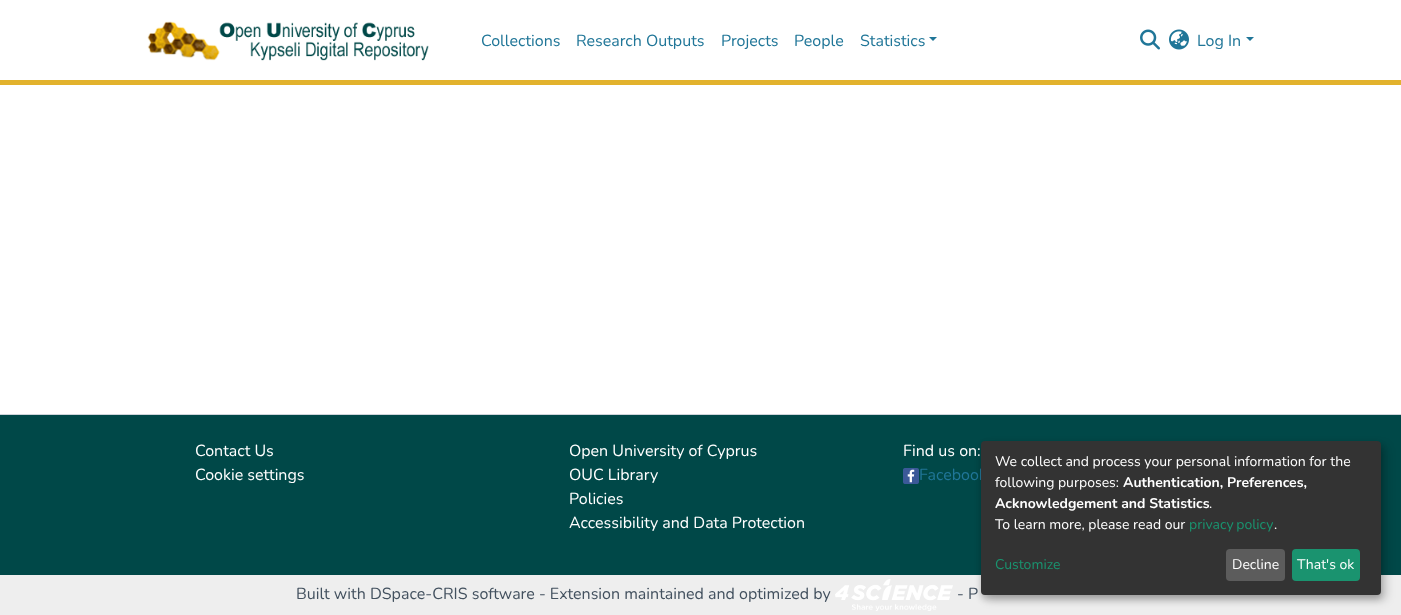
async function draw(canvas) {
	canvas.width = 1401;
	canvas.height = 615;
	const c = canvas.getContext('2d');
	c.miterLimit = 4;
	c.fontKerning = 'normal';
	async function loadImage(src) {
		const img = new Image();
		img.src = src;
		await img.decode();
		return img;
	}

	c.fillStyle = '#fff';
	c.fillRect(0, 0, 1401, 615);
	c.fillStyle = '#e2b22d';
	c.fillRect(0, 80, 1401, 5);
	c.drawImage(await loadImage('img1.png'), 147, 21, 282, 40);
	c.font = '16px Nunito';
	c.fillStyle = '#207698';
	for (const [text, x, y] of [
		['Collections', 481, 46],
		['Research Outputs', 576, 46],
		['Projects', 721, 46],
		['People', 794, 46],
		['Statistics', 860, 46],
	]) {
		c.fillText(text, x, y);
	}
	c.beginPath();
	c.moveTo(929, 37);
	c.lineTo(937, 37);
	c.lineTo(933, 41);
	c.closePath();
	c.fill();
	c.drawImage(await loadImage('img2.png'), 1140, 29, 20, 21);
	c.drawImage(await loadImage('img3.png'), 1169, 29, 20, 21);
	c.fillText('Log In', 1197, 46);
	c.beginPath();
	c.moveTo(1246, 37);
	c.lineTo(1254, 37);
	c.lineTo(1250, 41);
	c.closePath();
	c.fill();
	for (const [x, y, w, h, color] of [
		[0, 575, 1401, 40, '#eee'],
		[0, 414, 1401, 1, '#ced4da'],
		[0, 415, 1401, 160, '#004848'],
	]) {
		c.fillStyle = color;
		c.fillRect(x, y, w, h);
	}
	c.fillStyle = '#fff';
	for (const [text, x, y] of [
		['Contact Us', 195, 456],
		['Cookie settings', 195, 480],
		['Open University of Cyprus', 569, 456],
		['OUC Library', 569, 480],
		['Policies', 569, 504],
		['Accessibility and Data Protection', 569, 528],
		['Find us on:', 903, 456],
	]) {
		c.fillText(text, x, y);
	}
	c.drawImage(await loadImage('img4.png'), 903, 468, 16, 16);
	c.fillStyle = '#207698';
	c.fillText('Facebook', 919, 480);
	c.fillStyle = '#43515f';
	c.fillText('Built with DSpace-CRIS software - Extension maintained and optimized by', 296, 599);
	c.drawImage(await loadImage('img5.png'), 835, 579, 118, 32);
	c.fillText('- P', 957, 599);
	c.fillStyle = '#00000030';
	c.filter = 'blur(5px)';
	c.beginPath();
	c.roundRect(986, 446, 400, 154, 4);
	c.fill();
	c.filter = 'none';
	c.fillStyle = '#00000033';
	c.filter = 'blur(3px)';
	c.beginPath();
	c.roundRect(981, 445, 400, 154, 4);
	c.fill();
	c.filter = 'none';
	c.fillStyle = '#333';
	c.beginPath();
	c.roundRect(981, 441, 400, 154, 4);
	c.fill();
	c.font = '14px Nunito';
	c.fillStyle = '#fff';
	c.fillText('We collect and process your personal information for the', 995, 466);
	c.fillText('following purposes:', 995, 487);
	c.font = 'bold 14px Nunito';
	c.fillText('Authentication, Preferences,', 1123, 487);
	c.fillText('Acknowledgement and Statistics', 995, 508);
	c.font = '14px Nunito';
	c.fillText('.', 1209, 508);
	c.fillText('To learn more, please read our', 995, 529);
	c.wordSpacing = '-1px';
	c.fillStyle = '#1a936f';
	c.fillText('privacy policy', 1189, 529);
	c.wordSpacing = '0px';
	c.fillStyle = '#fff';
	c.fillText('.', 1274, 529);
	c.fillStyle = '#1a936f';
	c.fillText('Customize', 995, 569);
	c.fillStyle = '#5c5c5c';
	c.beginPath();
	c.roundRect(1226, 549, 59, 32, 4);
	c.fill();
	c.fillStyle = '#fff';
	c.fillText('Decline', 1232, 569);
	c.fillStyle = '#1a936f';
	c.beginPath();
	c.roundRect(1292, 549, 68, 32, 4);
	c.fill();
	c.fillStyle = '#fff';
	c.fillText('That\'s ok', 1297, 569);
}

draw(document.querySelector('canvas'));
